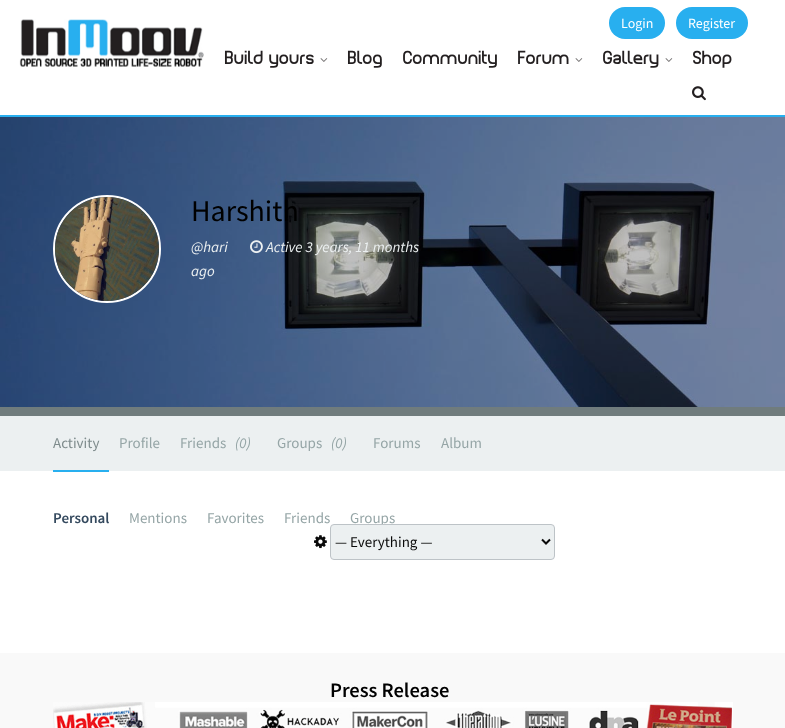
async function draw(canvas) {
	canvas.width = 785;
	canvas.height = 728;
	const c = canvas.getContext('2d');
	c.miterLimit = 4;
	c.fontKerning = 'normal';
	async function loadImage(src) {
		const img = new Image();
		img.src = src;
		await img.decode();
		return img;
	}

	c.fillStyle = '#fff';
	c.fillRect(0, 0, 785, 728);
	c.fillStyle = '#28afef';
	c.fillRect(0, 115, 785, 2);
	c.drawImage(await loadImage('img1.png'), 19, 19, 185, 48);
	c.beginPath();
	c.roundRect(609, 7, 56, 32, 16);
	c.fill();
	c.font = '14px Source Sans Pro';
	c.fillStyle = '#fff';
	c.fillText('Login', 621, 28);
	c.fillStyle = '#28afef';
	c.beginPath();
	c.roundRect(676, 7, 72, 32, 16);
	c.fill();
	c.fillStyle = '#fff';
	c.fillText('Register', 688, 28);
	c.font = '18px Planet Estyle';
	c.fillStyle = '#231f20';
	c.fillText('Build yours', 225, 64);
	c.drawImage(await loadImage('img2.png'), 320, 58, 8, 4);
	for (const [text, x, y] of [
		['Blog', 348, 64],
		['Community', 403, 64],
		['Forum', 518, 64],
	]) {
		c.fillText(text, x, y);
	}
	c.drawImage(await loadImage('img2.png'), 575, 58, 8, 4);
	c.fillText('Gallery', 603, 64);
	c.drawImage(await loadImage('img2.png'), 665, 58, 8, 4);
	c.fillText('Shop', 693, 64);
	c.drawImage(await loadImage('img3.png'), 692, 86, 14, 15);
	c.fillStyle = '#707c7d';
	c.fillRect(0, 407, 785, 9);
	c.drawImage(await loadImage('img4.png'), 0, 117, 785, 290);
	c.beginPath();
	c.arc(107, 249, 53, 0, 2 * Math.PI);
	c.strokeStyle = '#fff';
	c.lineWidth = 2;
	c.stroke();
	c.drawImage(await loadImage('img5.png'), 55, 197, 104, 104);
	c.font = '30px Source Sans Pro';
	c.fillStyle = '#000';
	c.fillText('Harshith', 191, 221);
	c.font = 'italic 15px Source Sans Pro';
	c.fillStyle = '#ecf0f1';
	c.fillText('@hari', 191, 252);
	c.drawImage(await loadImage('img6.png'), 250, 240, 13, 14);
	c.fillText('Active 3 years, 11 months', 266, 252);
	c.fillText('ago', 191, 276);
	c.fillRect(0, 416, 785, 55);
	c.fillStyle = '#28afef';
	c.fillRect(53, 470, 56, 2);
	c.font = '15px Source Sans Pro';
	c.fillStyle = '#7f8c8d';
	c.fillText('Activity', 53, 448);
	c.fillStyle = '#95a5a6';
	c.fillText('Profile', 119, 448);
	c.fillText('Friends', 180, 448);
	c.font = 'italic 15px Source Sans Pro';
	c.fillText('(0)', 235, 448);
	c.font = '15px Source Sans Pro';
	c.fillText('Groups', 277, 448);
	c.font = 'italic 15px Source Sans Pro';
	c.fillText('(0)', 331, 448);
	c.font = '15px Source Sans Pro';
	c.fillText('Forums', 373, 448);
	c.fillText('Album', 441, 448);
	c.font = '600 15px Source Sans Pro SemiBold';
	c.fillStyle = '#34495e';
	c.fillText('Personal', 53, 523);
	c.font = '15px Source Sans Pro';
	c.fillStyle = '#95a5a6';
	for (const [text, x, y] of [
		['Mentions', 129, 523],
		['Favorites', 207, 523],
		['Friends', 284, 523],
		['Groups', 350, 523],
	]) {
		c.fillText(text, x, y);
	}
	c.drawImage(await loadImage('img7.png'), 314, 535, 13, 14);
	c.fillStyle = '#ecf0f1';
	c.beginPath();
	c.roundRect(330.5, 524.5, 224, 35, 3.5);
	c.fill();
	c.strokeStyle = '#bdc3c7';
	c.lineWidth = 1;
	c.stroke();
	c.beginPath();
	c.moveTo(542, 539.5);
	c.lineTo(546, 543.5);
	c.lineTo(550, 539.5);
	c.strokeStyle = '#0a0a0a';
	c.lineWidth = 2;
	c.stroke();
	c.fillStyle = '#0a0a0a';
	c.fillText('— Everything —', 335, 547);
	c.fillStyle = '#f9f9f9';
	c.fillRect(0, 653, 785, 75);
	c.font = '600 20.5px Source Sans Pro SemiBold';
	c.fillStyle = '#000';
	c.fillText('Press Release', 330, 697);
	c.drawImage(await loadImage('img8.png'), 53, 702, 680, 26);
}

draw(document.querySelector('canvas'));
